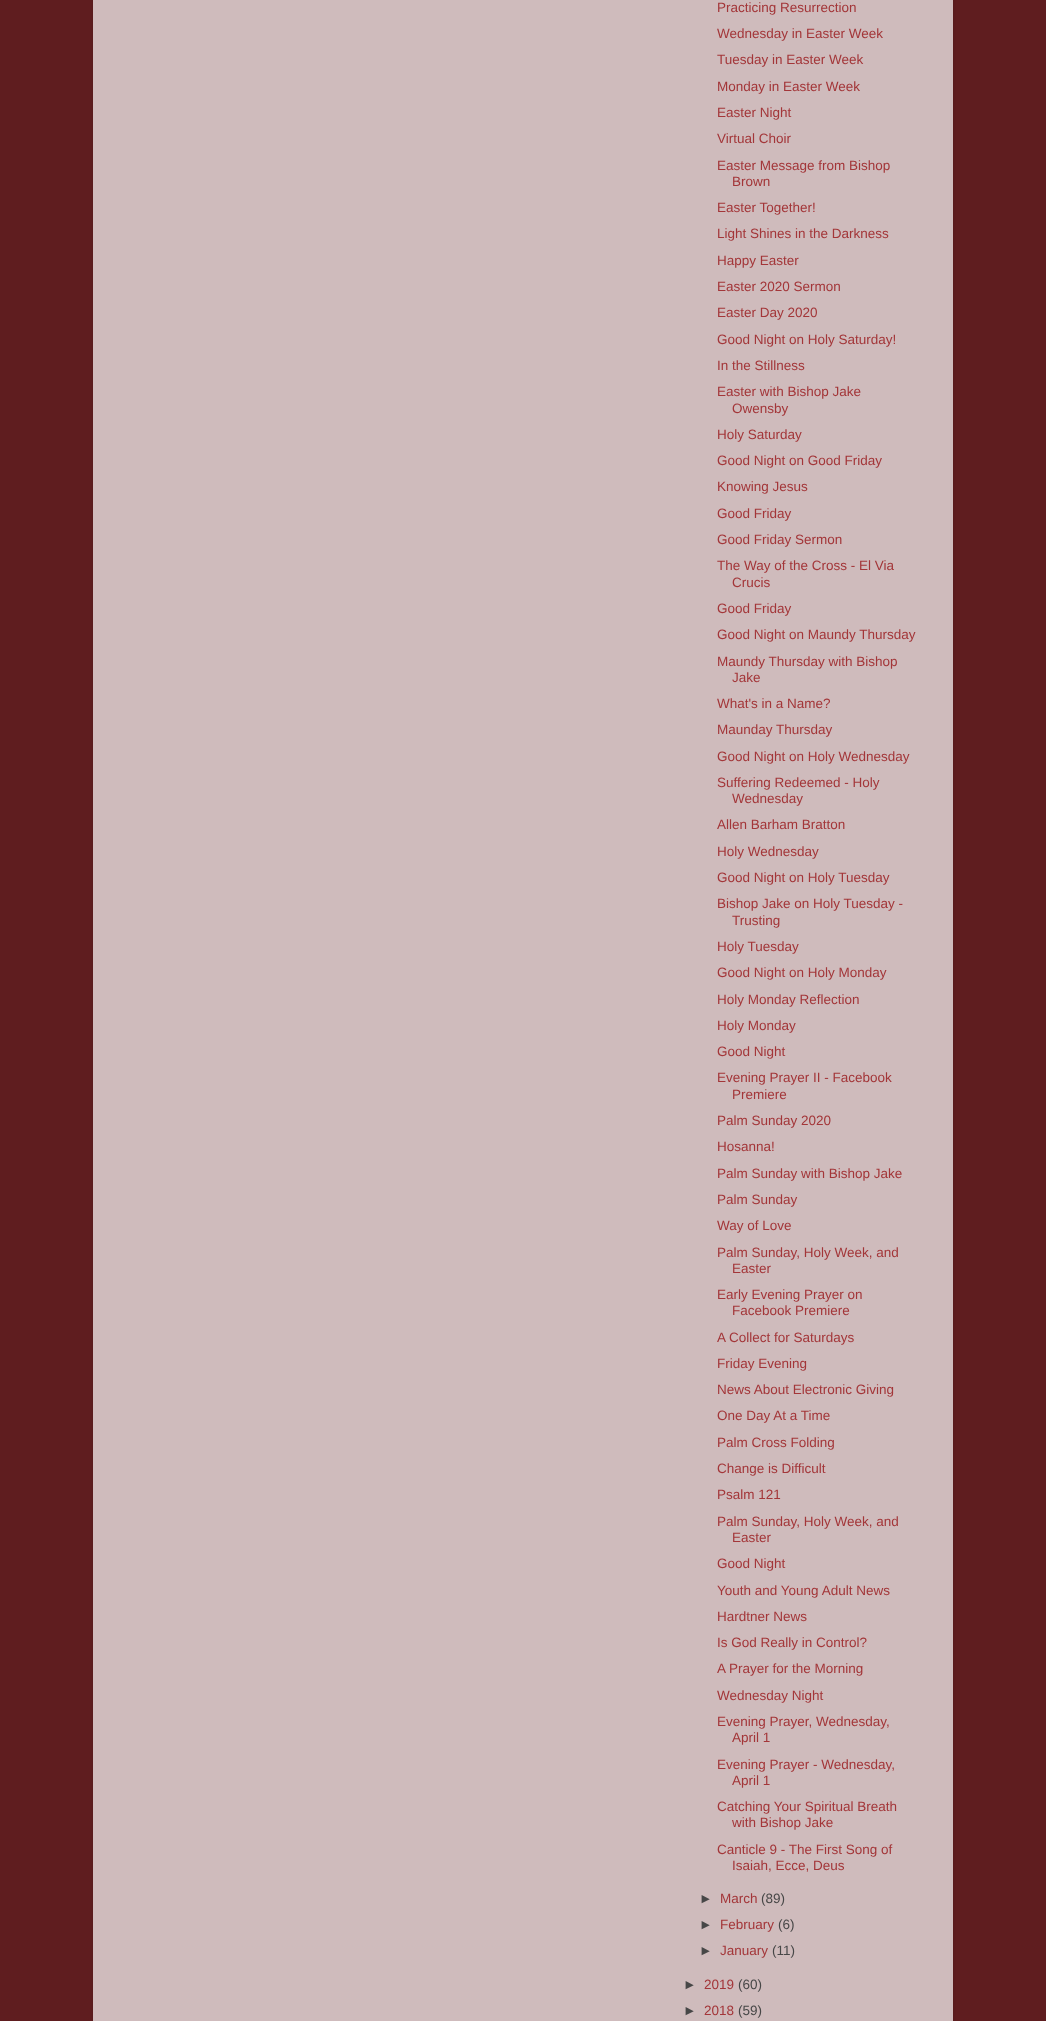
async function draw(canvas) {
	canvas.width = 1046;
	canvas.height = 2021;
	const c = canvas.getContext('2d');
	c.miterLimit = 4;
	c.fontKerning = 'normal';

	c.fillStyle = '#5f1d1f';
	c.fillRect(0, 0, 1046, 2021);
	c.fillStyle = '#00000026';
	c.filter = 'blur(1.5px)';
	c.beginPath();
	c.roundRect(93, -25, 860, 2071, 20);
	c.fill();
	c.filter = 'none';
	c.fillStyle = '#cfbbbc';
	c.fillRect(93, 0, 860, 2021);
	c.font = '13.5px Liberation Sans';
	c.fillStyle = '#a33639';
	for (const [text, x, y] of [
		['Practicing Resurrection', 717, 12],
		['Wednesday in Easter Week', 717, 38],
		['Tuesday in Easter Week', 717, 64],
		['Monday in Easter Week', 717, 91],
		['Easter Night', 717, 117],
		['Virtual Choir', 717, 143],
		['Easter Message from Bishop', 717, 170],
		['Brown', 732, 186],
		['Easter Together!', 717, 212],
		['Light Shines in the Darkness', 717, 238],
		['Happy Easter', 717, 265],
		['Easter 2020 Sermon', 717, 291],
		['Easter Day 2020', 717, 317],
		['Good Night on Holy Saturday!', 717, 344],
		['In the Stillness', 717, 370],
		['Easter with Bishop Jake', 717, 396],
		['Owensby', 732, 413],
		['Holy Saturday', 717, 439],
		['Good Night on Good Friday', 717, 465],
		['Knowing Jesus', 717, 491],
		['Good Friday', 717, 518],
		['Good Friday Sermon', 717, 544],
		['The Way of the Cross - El Via', 717, 570],
		['Crucis', 732, 587],
		['Good Friday', 717, 613],
		['Good Night on Maundy Thursday', 717, 639],
		['Maundy Thursday with Bishop', 717, 666],
		['Jake', 732, 682],
		['What\'s in a Name?', 717, 708],
		['Maunday Thursday', 717, 734],
		['Good Night on Holy Wednesday', 717, 761],
		['Suffering Redeemed - Holy', 717, 787],
		['Wednesday', 732, 803],
		['Allen Barham Bratton', 717, 829],
		['Holy Wednesday', 717, 856],
		['Good Night on Holy Tuesday', 717, 882],
		['Bishop Jake on Holy Tuesday -', 717, 908],
		['Trusting', 732, 925],
		['Holy Tuesday', 717, 951],
		['Good Night on Holy Monday', 717, 977],
		['Holy Monday Reflection', 717, 1004],
		['Holy Monday', 717, 1030],
		['Good Night', 717, 1056],
		['Evening Prayer II - Facebook', 717, 1082],
		['Premiere', 732, 1099],
		['Palm Sunday 2020', 717, 1125],
		['Hosanna!', 717, 1151],
		['Palm Sunday with Bishop Jake', 717, 1178],
		['Palm Sunday', 717, 1204],
		['Way of Love', 717, 1230],
		['Palm Sunday, Holy Week, and', 717, 1257],
		['Easter', 732, 1273],
		['Early Evening Prayer on', 717, 1299],
		['Facebook Premiere', 732, 1315],
		['A Collect for Saturdays', 717, 1342],
		['Friday Evening', 717, 1368],
		['News About Electronic Giving', 717, 1394],
		['One Day At a Time', 717, 1420],
		['Palm Cross Folding', 717, 1447],
		['Change is Difficult', 717, 1473],
		['Psalm 121', 717, 1499],
		['Palm Sunday, Holy Week, and', 717, 1526],
		['Easter', 732, 1542],
		['Good Night', 717, 1568],
		['Youth and Young Adult News', 717, 1595],
		['Hardtner News', 717, 1621],
		['Is God Really in Control?', 717, 1647],
		['A Prayer for the Morning', 717, 1673],
		['Wednesday Night', 717, 1700],
		['Evening Prayer, Wednesday,', 717, 1726],
		['April 1', 732, 1742],
		['Evening Prayer - Wednesday,', 717, 1769],
		['April 1', 732, 1785],
		['Catching Your Spiritual Breath', 717, 1811],
		['with Bishop Jake', 732, 1827],
		['Canticle 9 - The First Song of', 717, 1854],
		['Isaiah, Ecce, Deus', 732, 1870],
	]) {
		c.fillText(text, x, y);
	}
	c.fillStyle = '#474747';
	c.fillText('►', 699, 1903);
	c.fillStyle = '#a33639';
	c.fillText('March', 720, 1903);
	c.fillStyle = '#474747';
	c.fillText('(89)', 761, 1903);
	c.fillText('►', 699, 1929);
	c.fillStyle = '#a33639';
	c.fillText('February', 720, 1929);
	c.fillStyle = '#474747';
	c.fillText('(6)', 778, 1929);
	c.fillText('►', 699, 1955);
	c.fillStyle = '#a33639';
	c.fillText('January', 720, 1955);
	c.fillStyle = '#474747';
	c.fillText('(11)', 772, 1955);
	c.fillText('►', 683, 1989);
	c.fillStyle = '#a33639';
	c.fillText('2019', 704, 1989);
	c.fillStyle = '#474747';
	c.fillText('(60)', 738, 1989);
	c.fillText('►', 683, 2015);
	c.fillStyle = '#a33639';
	c.fillText('2018', 704, 2015);
	c.fillStyle = '#474747';
	c.fillText('(59)', 738, 2015);
}

draw(document.querySelector('canvas'));
